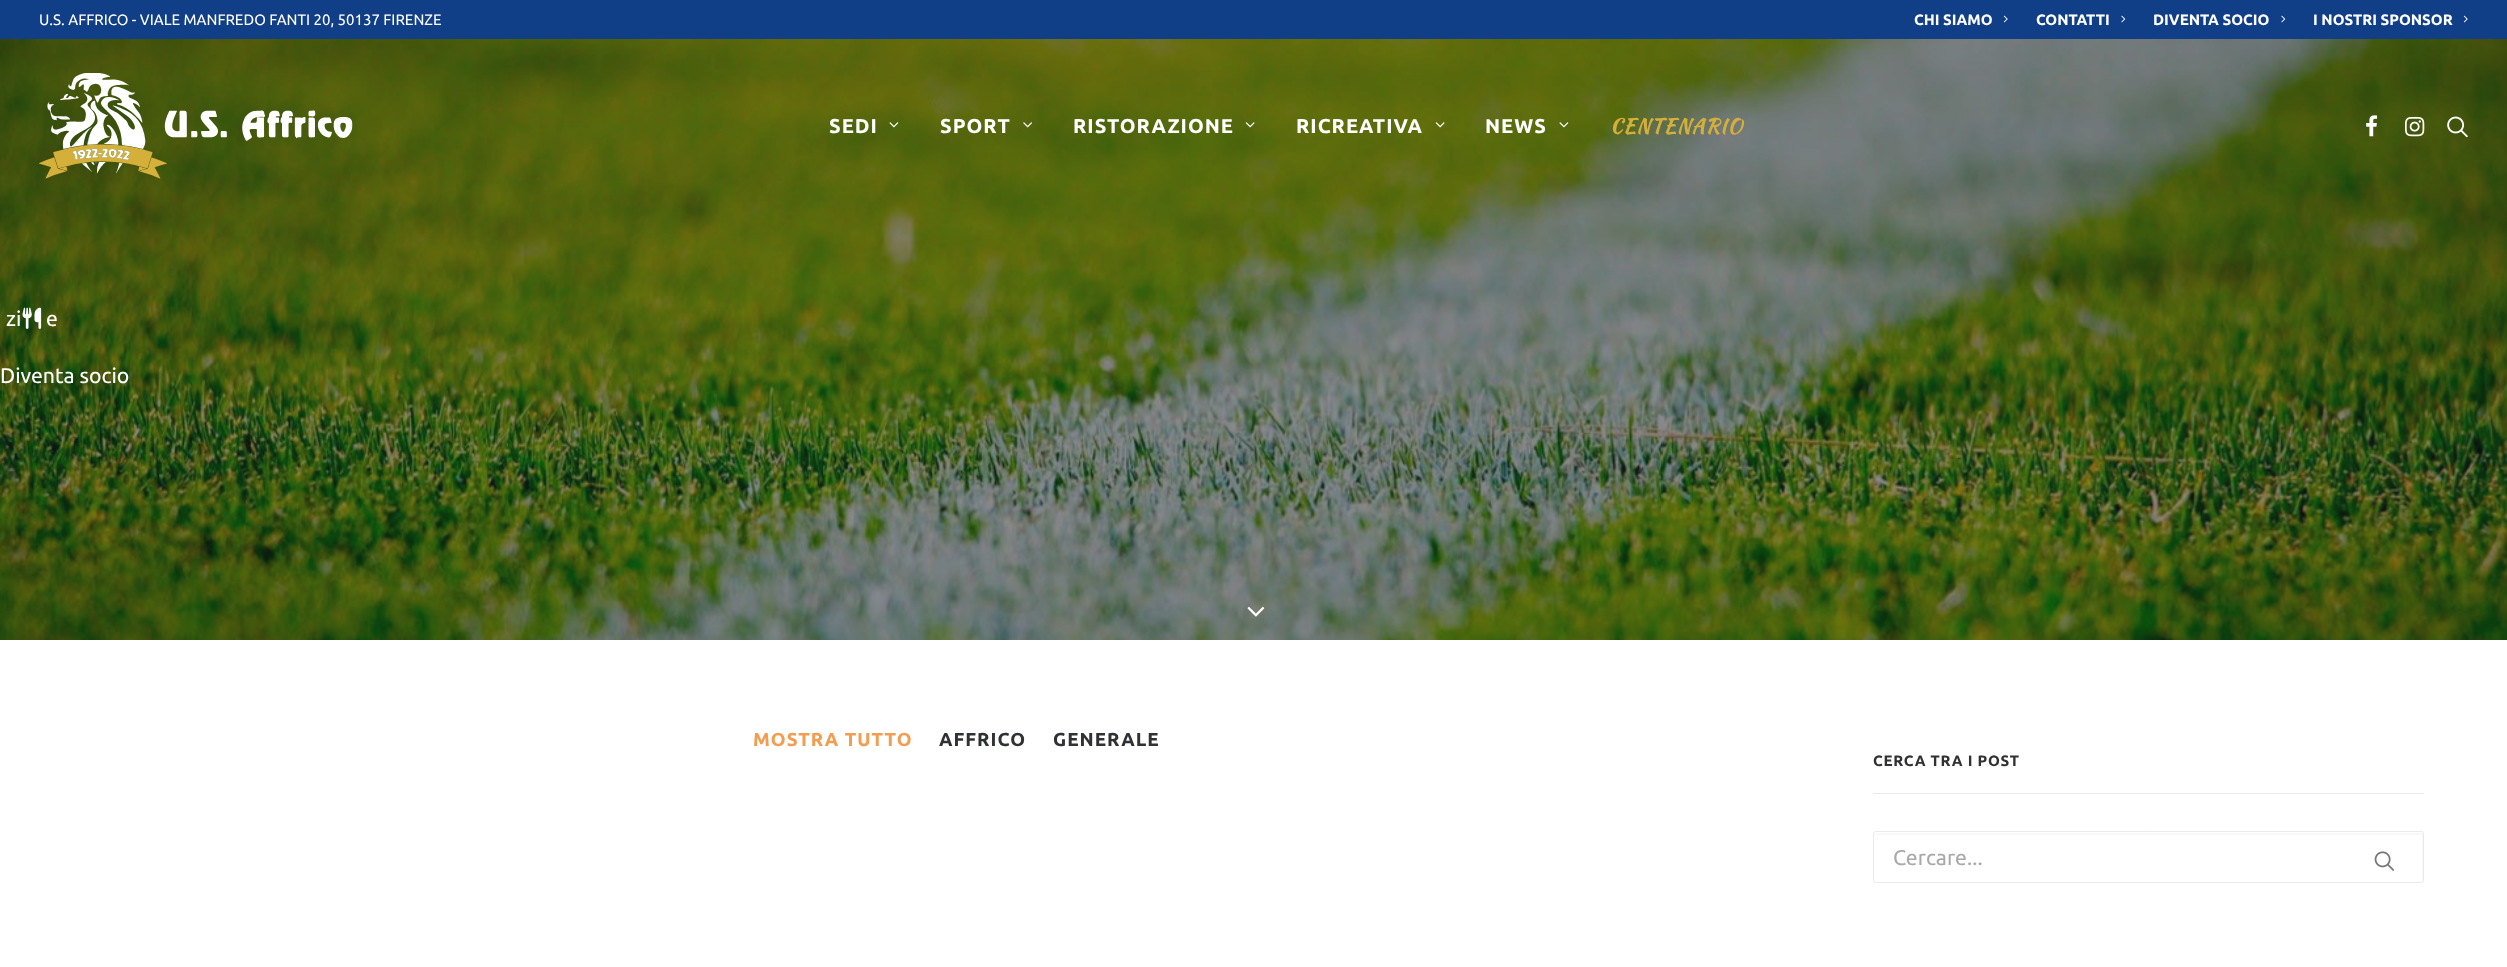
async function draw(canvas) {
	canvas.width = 2507;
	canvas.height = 967;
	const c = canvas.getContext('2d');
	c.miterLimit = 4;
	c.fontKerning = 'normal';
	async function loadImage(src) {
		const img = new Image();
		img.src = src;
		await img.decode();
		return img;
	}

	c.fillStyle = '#fff';
	c.fillRect(0, 0, 2507, 967);
	c.fillStyle = '#103e87';
	c.fillRect(0, 0, 2507, 39);
	c.font = '15px Ubuntu';
	c.fillStyle = '#fff';
	c.fillText('U.S. AFFRICO - VIALE MANFREDO FANTI 20, 50137 FIRENZE', 39, 25);
	c.font = 'bold 15px Ubuntu';
	c.fillText('CHI SIAMO', 1914, 25);
	c.drawImage(await loadImage('img1.png'), 2003, 15, 5, 8);
	c.fillText('CONTATTI', 2036, 25);
	c.drawImage(await loadImage('img2.png'), 2121, 15, 5, 8);
	c.fillText('DIVENTA SOCIO', 2153, 25);
	c.drawImage(await loadImage('img2.png'), 2281, 15, 5, 8);
	c.fillText('I NOSTRI SPONSOR', 2313, 25);
	c.drawImage(await loadImage('img1.png'), 2463, 15, 5, 8);
	c.drawImage(await loadImage('img12.png'), 0, 39, 2507, 601);
	c.drawImage(await loadImage('img3.png'), 39, 73, 314, 106);
	c.letterSpacing = '1px';
	c.font = 'bold 20px Ubuntu';
	c.fillText('SEDI', 829, 133);
	c.drawImage(await loadImage('img4.png'), 889, 122, 10, 6);
	c.fillText('SPORT', 940, 133);
	c.drawImage(await loadImage('img5.png'), 1023, 122, 9, 6);
	c.fillText('RISTORAZIONE', 1073, 133);
	c.drawImage(await loadImage('img6.png'), 1245, 122, 10, 6);
	c.fillText('RICREATIVA', 1296, 133);
	c.drawImage(await loadImage('img7.png'), 1435, 122, 10, 6);
	c.fillText('NEWS', 1485, 133);
	c.drawImage(await loadImage('img8.png'), 1559, 122, 10, 6);
	c.font = 'bold 20px Kaushan Script';
	c.fillStyle = '#d4af39';
	c.fillText('CENTENARIO', 1610, 133);
	c.drawImage(await loadImage('img9.png'), 2366, 115, 12, 22);
	c.drawImage(await loadImage('img10.png'), 2405, 116, 20, 21);
	c.drawImage(await loadImage('img11.png'), 2447, 116, 21, 22);
	c.drawImage(await loadImage('img13.png'), 1247, 606, 18, 11);
	c.font = 'bold 18.75px Ubuntu';
	c.fillStyle = '#f29d51';
	c.fillText('MOSTRA TUTTO', 753, 746);
	c.fillStyle = '#303133';
	c.fillText('AFFRICO', 939, 746);
	c.fillText('GENERALE', 1053, 746);
	c.fillStyle = '#eaeaea';
	c.fillRect(1873, 793, 551, 1);
	c.letterSpacing = '0.75px';
	c.font = 'bold 15px Ubuntu';
	c.fillStyle = '#303133';
	c.fillText('CERCA TRA I POST', 1873, 766);
	c.fillStyle = '#f9f9f9';
	c.beginPath();
	c.moveTo(1875, 835);
	c.lineTo(2421, 835);
	c.bezierCurveTo(2422, 835, 2422, 836, 2422, 836);
	c.lineTo(2422, 881);
	c.lineTo(2423, 881);
	c.lineTo(2423, 842);
	c.bezierCurveTo(2423, 840, 2424, 833, 2422, 833);
	c.lineTo(1875, 833);
	c.bezierCurveTo(1874, 833, 1874, 835, 1874, 836);
	c.closePath();
	c.fill();
	c.beginPath();
	c.roundRect(1873.5, 831.5, 550, 51, 2);
	c.strokeStyle = '#eaeaea';
	c.stroke();
	c.letterSpacing = '0px';
	c.font = '21.25px Ubuntu';
	c.fillStyle = '#a9a9a9';
	c.fillText('Cercare...', 1893, 865);
	c.drawImage(await loadImage('img14.png'), 2374, 851, 21, 20);
	c.drawImage(await loadImage('img15.png'), 22, 307, 20, 22);
	c.fillStyle = '#fff';
	for (const [text, x, y] of [
		['zi', 6, 326],
		['e', 46, 326],
		['Diventa socio', 0, 383],
	]) {
		c.fillText(text, x, y);
	}
}

draw(document.querySelector('canvas'));
